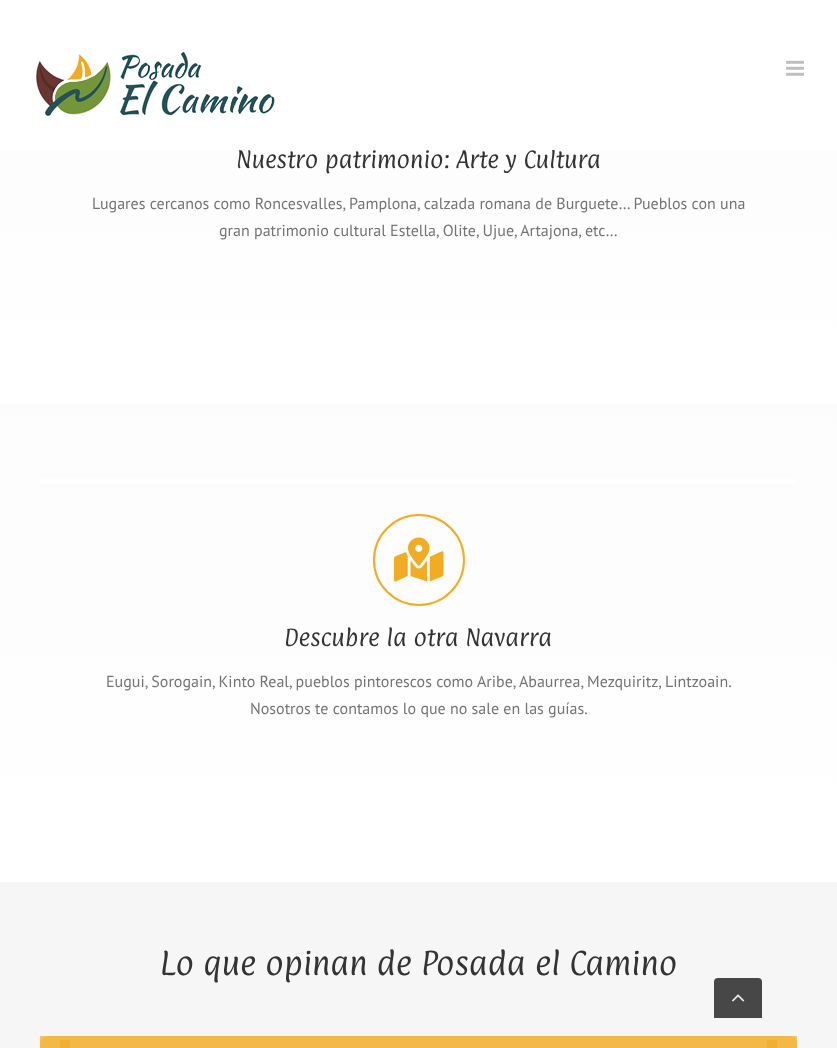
async function draw(canvas) {
	canvas.width = 837;
	canvas.height = 1048;
	const c = canvas.getContext('2d');
	c.miterLimit = 4;
	c.fontKerning = 'normal';
	async function loadImage(src) {
		const img = new Image();
		img.src = src;
		await img.decode();
		return img;
	}
	let gradient;

	c.fillStyle = '#f6f6f6';
	c.fillRect(0, 0, 837, 1048);
	gradient = c.createLinearGradient(418, -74, 419, 404);
	gradient.addColorStop(0, '#fbfbfb');
	gradient.addColorStop(1, '#fff');
	c.fillStyle = gradient;
	c.fillRect(0, 150, 837, 254);
	c.font = '20px Paprika';
	c.fillStyle = '#333';
	c.fillText('Nuestro patrimonio: Arte y Cultura', 236, 168);
	c.fillStyle = '#fff';
	c.fillRect(0, 0, 837, 150);
	c.drawImage(await loadImage('img1.png'), 36, 52, 239, 64);
	c.drawImage(await loadImage('img2.png'), 786, 60, 18, 16);
	c.font = '16px PT Sans';
	c.fillStyle = '#747474';
	c.fillText('Lugares cercanos como Roncesvalles, Pamplona, calzada romana de Burguete… Pueblos con una', 92, 209);
	c.fillText('gran patrimonio cultural Estella, Olite, Ujue, Artajona, etc…', 219, 236);
	gradient = c.createLinearGradient(418, 404, 419, 882);
	gradient.addColorStop(0, '#fcfcfc');
	gradient.addColorStop(1, '#fff');
	c.fillStyle = gradient;
	c.fillRect(0, 404, 837, 478);
	c.fillStyle = '#fff';
	c.fillRect(40, 479, 757, 5);
	c.beginPath();
	c.arc(419, 560, 45, 0, 2 * Math.PI);
	c.strokeStyle = '#f1ac24';
	c.lineWidth = 2;
	c.stroke();
	c.drawImage(await loadImage('img3.png'), 394, 537, 50, 45);
	c.font = '20px Paprika';
	c.fillStyle = '#333';
	c.fillText('Descubre la otra Navarra', 284, 646);
	c.font = '16px PT Sans';
	c.fillStyle = '#747474';
	c.fillText('Eugui, Sorogain, Kinto Real, pueblos pintorescos como Aribe, Abaurrea, Mezquiritz, Lintzoain.', 106, 687);
	c.fillText('Nosotros te contamos lo que no sale en las guías.', 250, 714);
	c.font = '27.5px Paprika';
	c.fillStyle = '#333';
	c.fillText('Lo que opinan de Posada el Camino', 160, 975);
	c.fillStyle = '#f4d18d';
	c.beginPath();
	c.roundRect(40, 1036, 757, 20, 8);
	c.fill();
	c.beginPath();
	c.moveTo(50, 1046);
	c.lineTo(787, 1046);
	c.lineTo(787, 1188);
	c.lineTo(50, 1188);
	c.closePath();
	c.strokeStyle = '#f1ac24ad';
	c.lineWidth = 20;
	c.stroke();
	c.fillStyle = '#f1b02f';
	c.fillRect(767, 1040, 10, 8);
	c.fillRect(60, 1040, 10, 8);
	c.fillStyle = '#474747';
	c.beginPath();
	c.roundRect(714, 978, 48, 40, [4, 4, 0, 0]);
	c.fill();
	c.drawImage(await loadImage('img4.png'), 732, 994, 13, 8);
}

draw(document.querySelector('canvas'));
